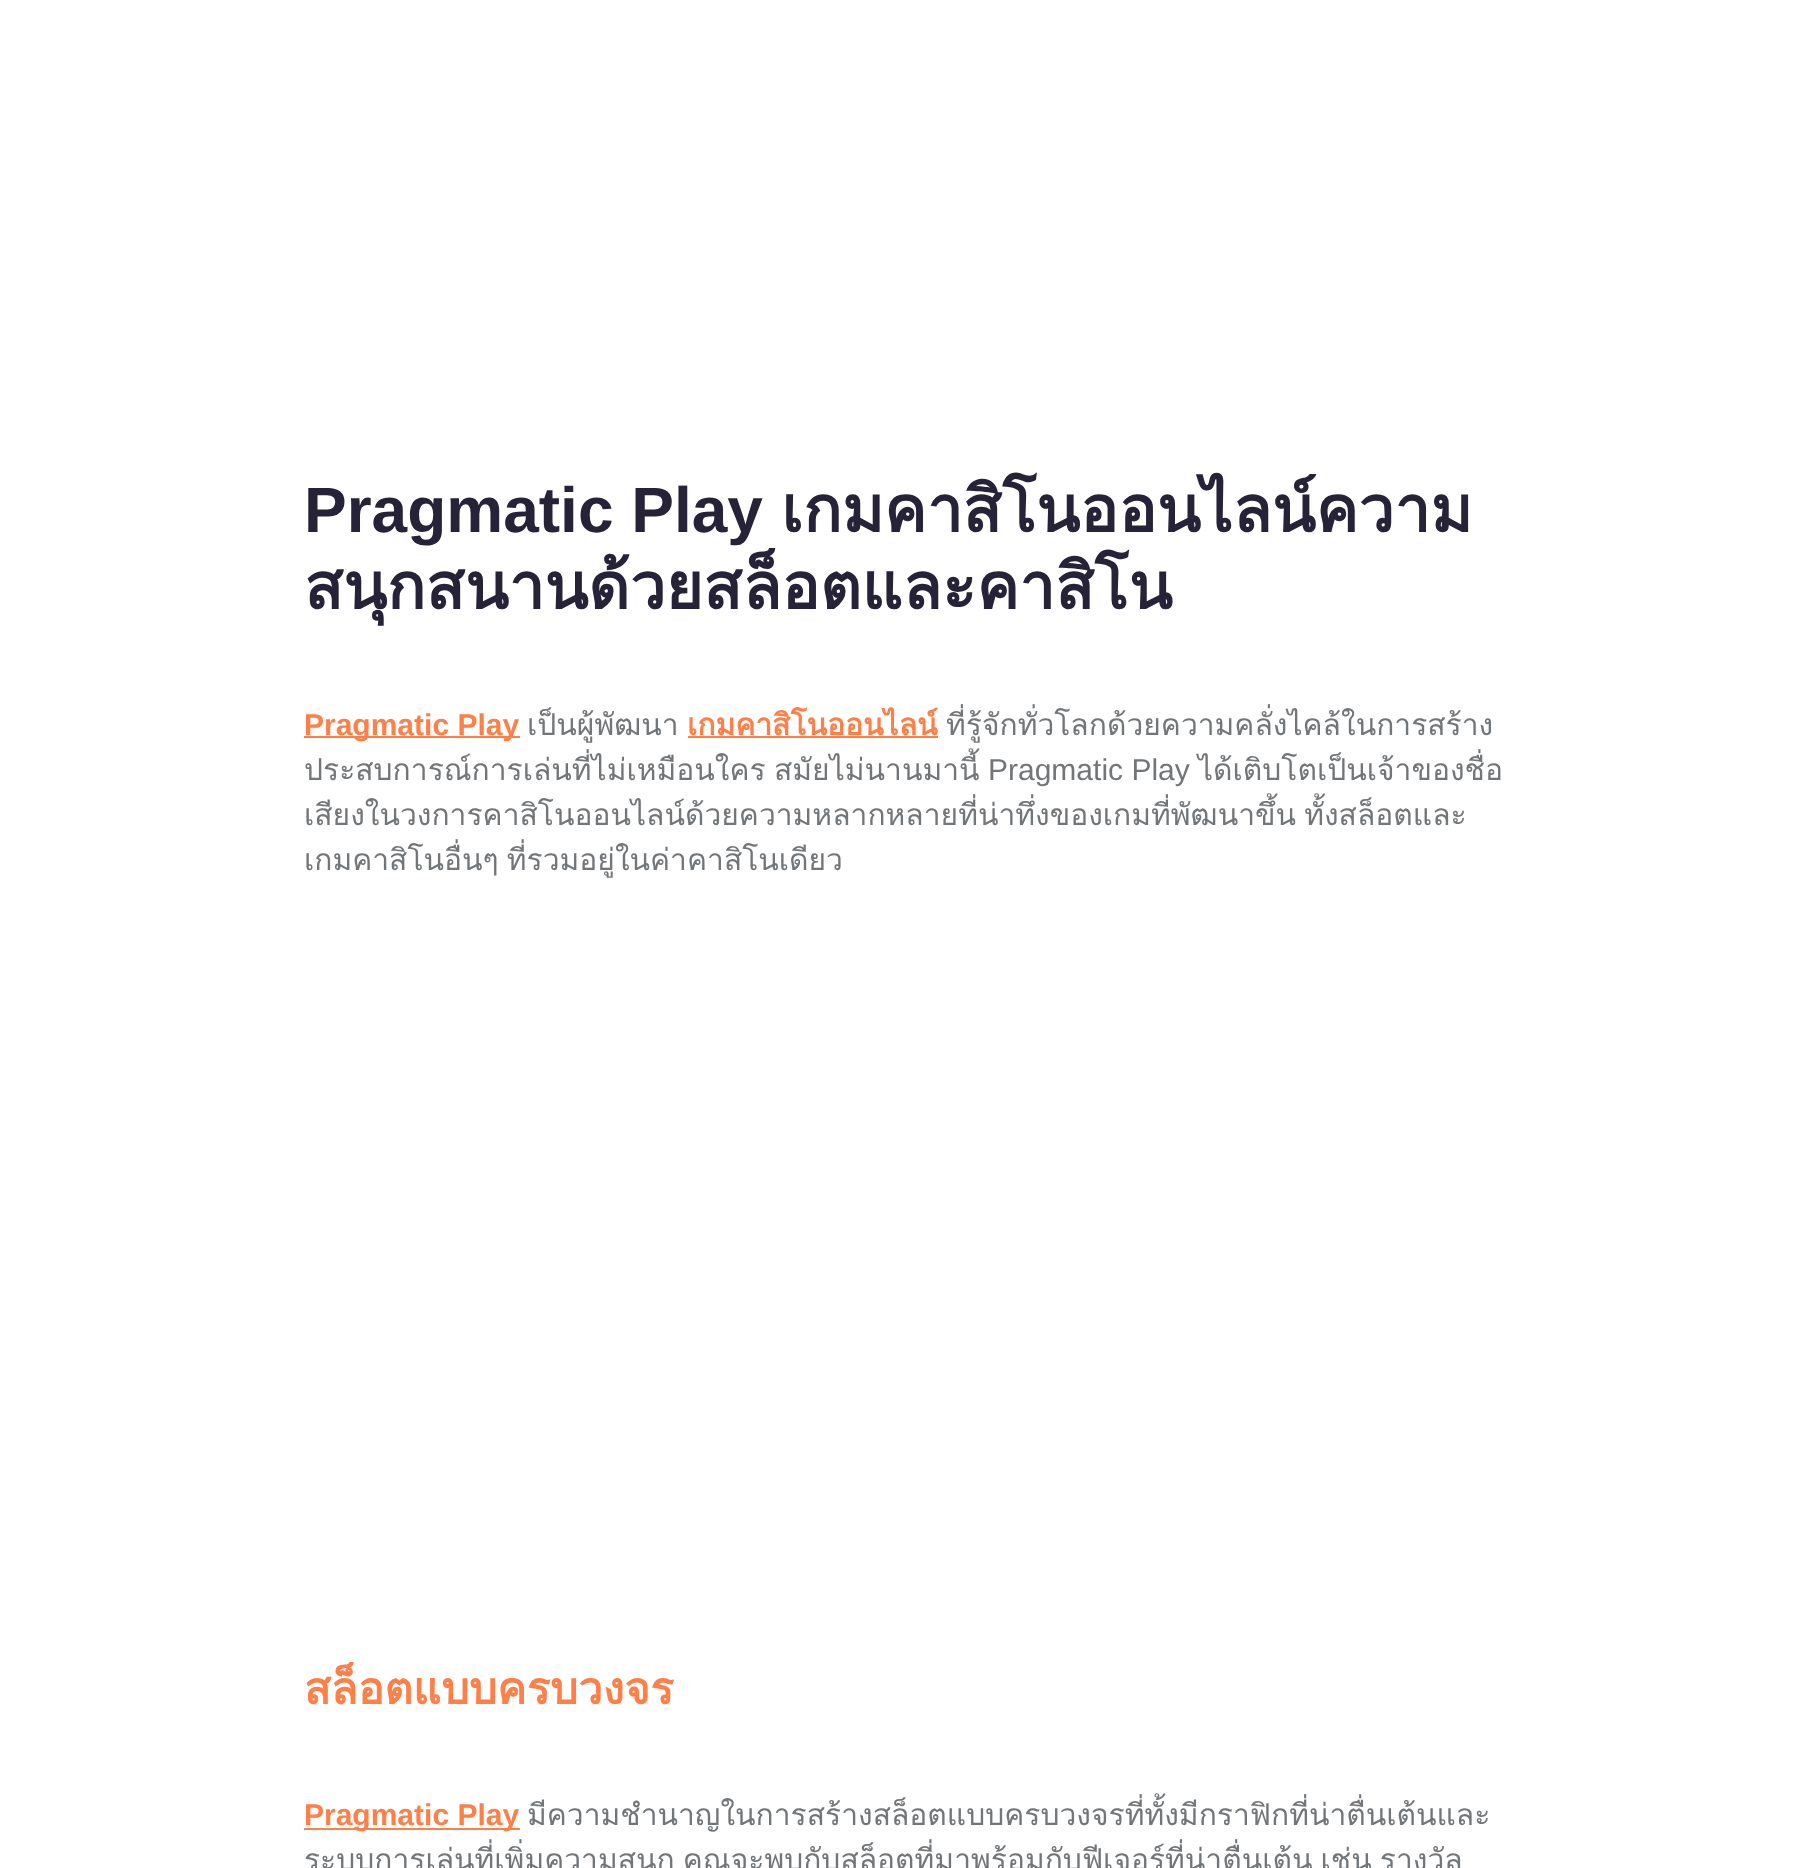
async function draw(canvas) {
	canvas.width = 1808;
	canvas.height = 1868;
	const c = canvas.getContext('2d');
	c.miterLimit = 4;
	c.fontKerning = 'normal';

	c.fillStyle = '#fff';
	c.fillRect(0, 0, 1808, 1868);
	c.font = 'bold 64px Liberation Sans';
	c.fillStyle = '#262339';
	c.fillText('Pragmatic Play', 304, 532);
	c.font = 'bold 64px Loma';
	c.fillText('เกมคาสิโนออนไลน์ความ', 781, 532);
	c.fillText('สนุกสนานด้วยสล็อตและคาสิโน', 304, 609);
	c.fillStyle = '#ff7f47';
	c.fillRect(304, 736, 216, 2);
	c.font = 'bold 30px Liberation Sans';
	c.fillText('Pragmatic Play', 304, 735);
	c.font = '30px Loma';
	c.fillStyle = '#737679';
	c.fillText('เป็นผู้พัฒนา', 527, 735);
	c.font = 'bold 30px Loma';
	c.fillStyle = '#ff7f47';
	c.fillText('เกมคาสิโนออนไลน์', 687, 735);
	c.fillRect(688, 736, 250, 2);
	c.font = '30px Loma';
	c.fillStyle = '#737679';
	for (const [text, x, y] of [
		['ที่รู้จักทั่วโลกด้วยความคลั่งไคล้ในการสร้าง', 946, 735],
		['ประสบการณ์การเล่นที่ไม่เหมือนใคร', 304, 780],
		['สมัยไม่นานมานี้', 774, 780],
	]) {
		c.fillText(text, x, y);
	}
	c.font = '30px Liberation Sans';
	c.fillText('Pragmatic Play', 988, 780);
	c.font = '30px Loma';
	c.fillText('ได้เติบโตเป็นเจ้าของชื่อ', 1198, 780);
	c.wordSpacing = '-2px';
	c.fillText('เสียงในวงการคาสิโนออนไลน์ด้วยความหลากหลายที่น่าทึ่งของเกมที่พัฒนาขึ้น ทั้งสล็อตและ', 304, 825);
	c.fillText('เกมคาสิโนอื่นๆ ที่รวมอยู่ในค่าคาสิโนเดียว', 304, 870);
	c.wordSpacing = '0px';
	c.font = 'bold 44px Loma';
	c.fillStyle = '#ff7f47';
	c.fillText('สล็อตแบบครบวงจร', 304, 1704);
	c.fillRect(304, 1828, 216, 2);
	c.font = 'bold 30px Liberation Sans';
	c.fillText('Pragmatic Play', 304, 1825);
	c.font = '30px Loma';
	c.fillStyle = '#737679';
	c.fillText('มีความชำนาญในการสร้างสล็อตแบบครบวงจรที่ทั้งมีกราฟิกที่น่าตื่นเต้นและ', 527, 1825);
	c.wordSpacing = '-2px';
	c.fillText('ระบบการเล่นที่เพิ่มความสนุก คุณจะพบกับสล็อตที่มาพร้อมกับฟีเจอร์ที่น่าตื่นเต้น เช่น รางวัล', 304, 1870);
}

draw(document.querySelector('canvas'));
